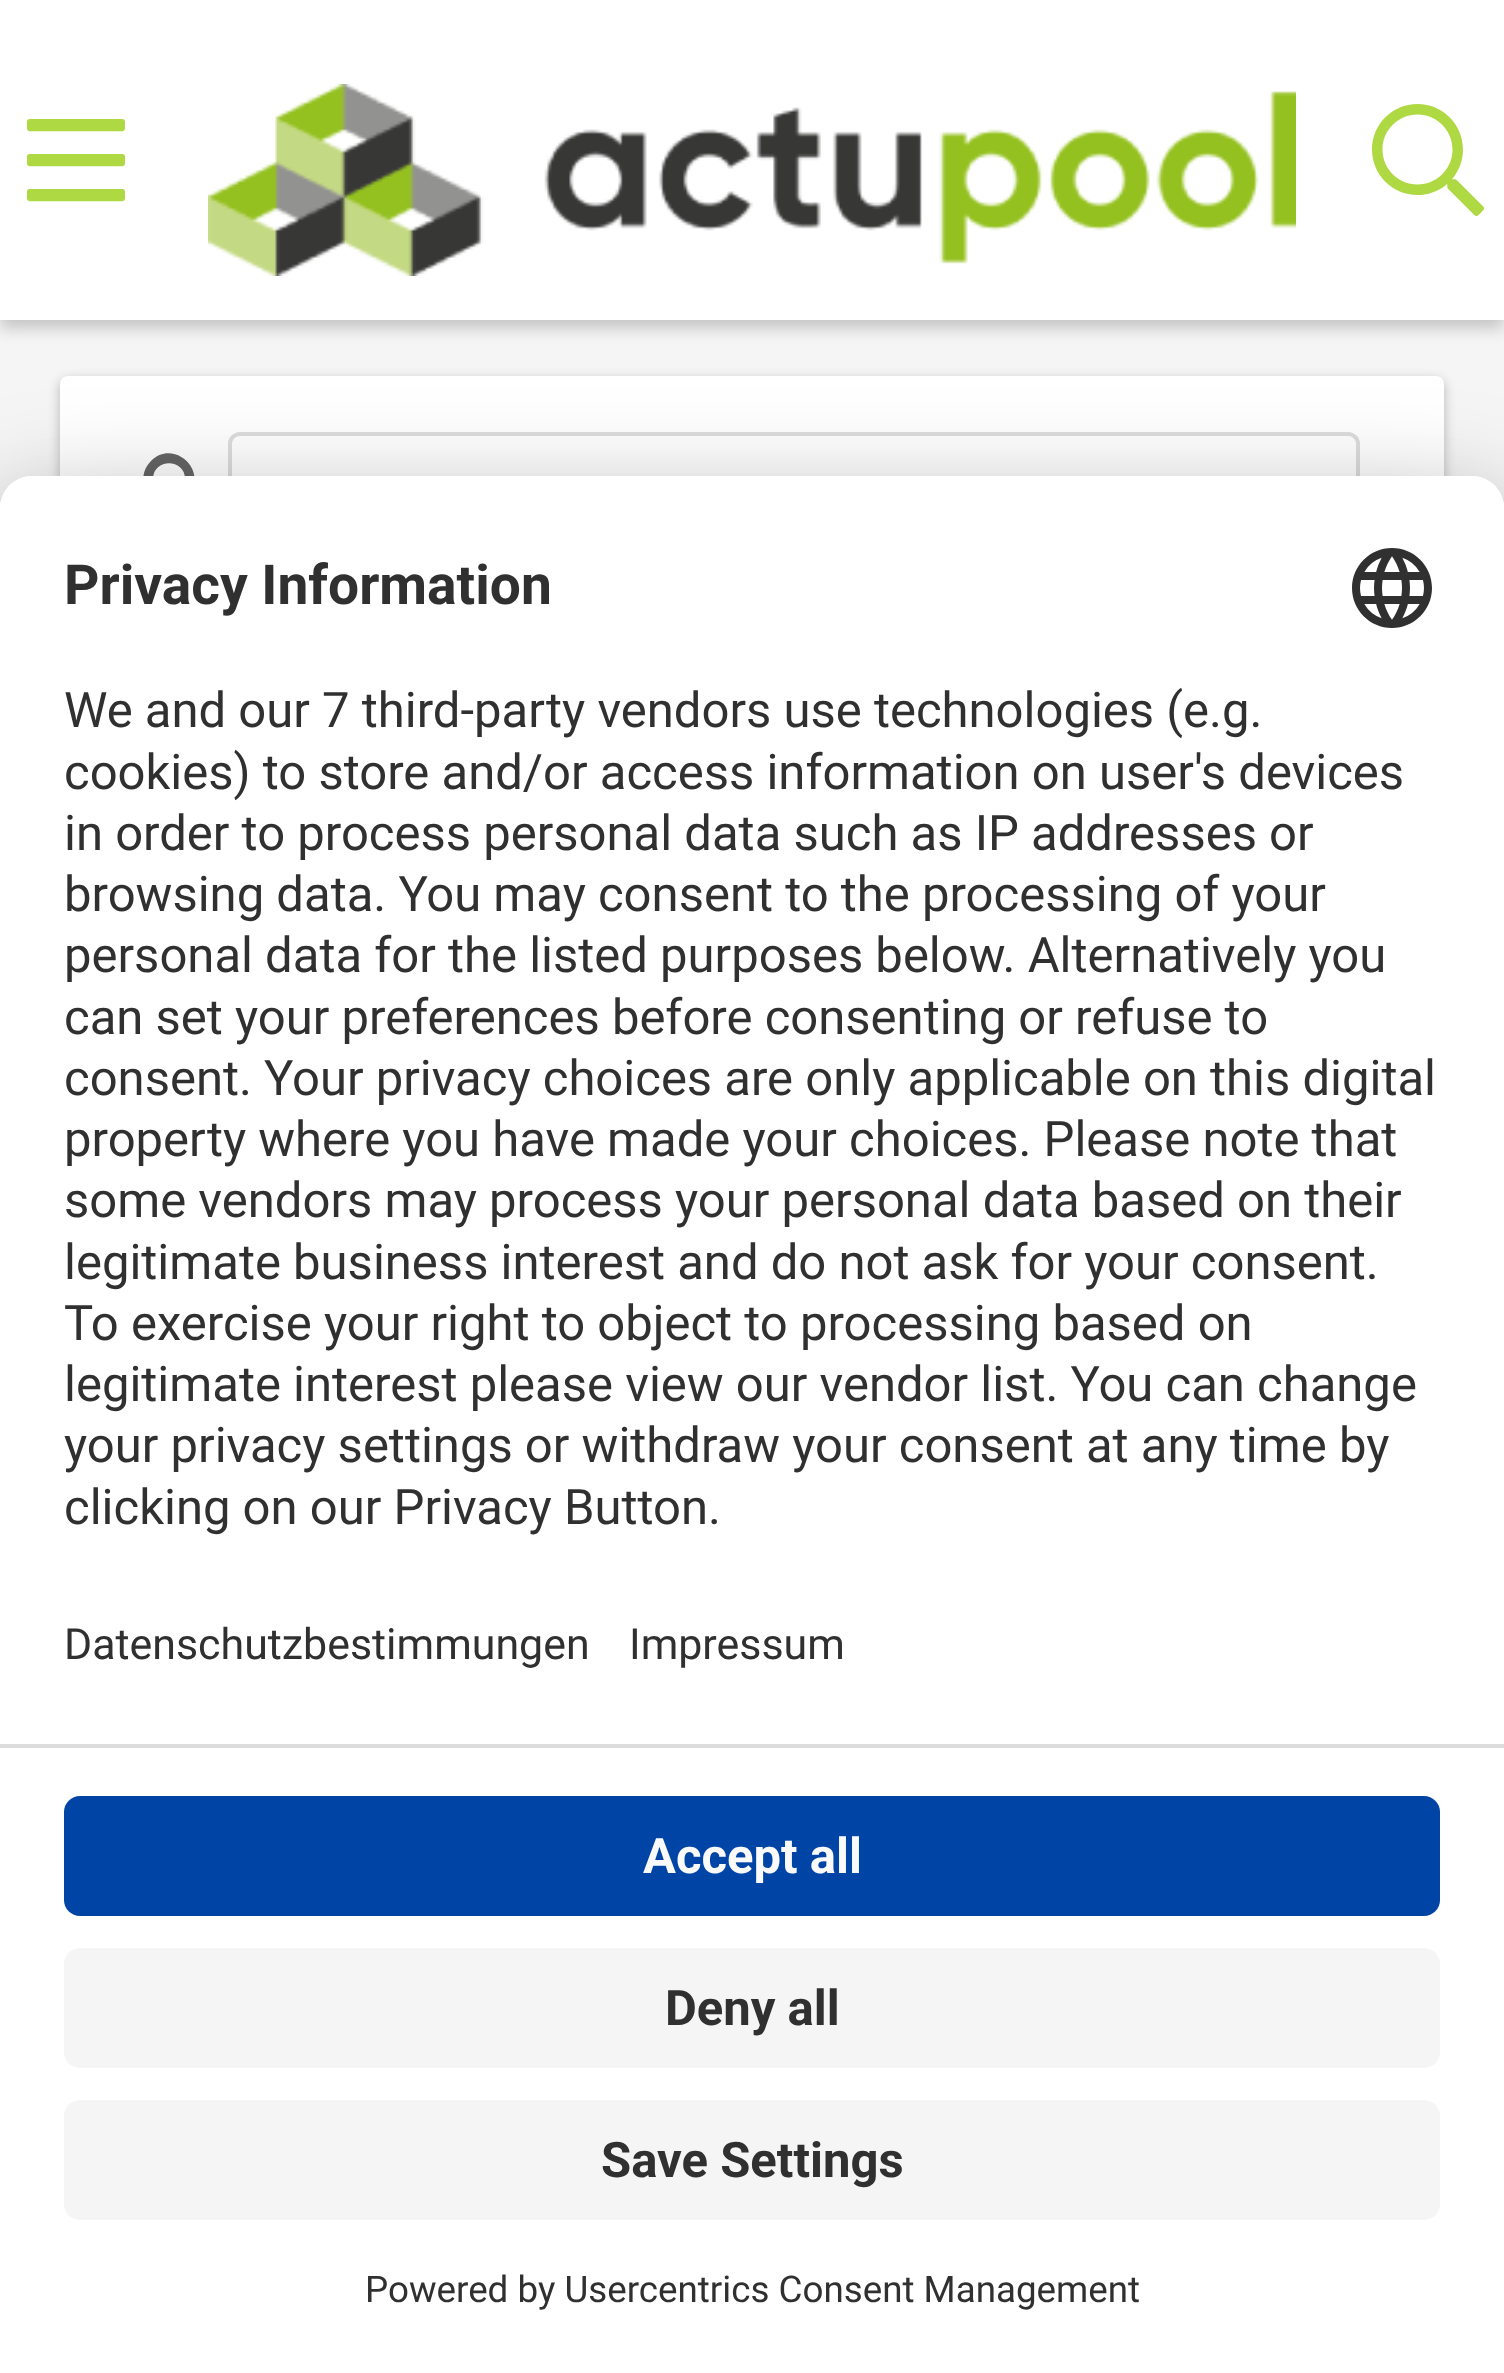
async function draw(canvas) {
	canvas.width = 1504;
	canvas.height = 2373;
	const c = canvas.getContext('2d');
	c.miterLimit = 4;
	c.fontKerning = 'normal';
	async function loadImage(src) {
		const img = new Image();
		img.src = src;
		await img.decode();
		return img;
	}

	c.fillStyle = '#f5f5f5';
	c.fillRect(0, 0, 1504, 2373);
	c.fillStyle = '#91919180';
	c.filter = 'blur(8px)';
	c.beginPath();
	c.rect(0, 8, 1504, 320);
	c.fill();
	c.filter = 'none';
	c.fillStyle = '#fff';
	c.fillRect(0, 0, 1504, 320);
	c.drawImage(await loadImage('img1.png'), 27, 119, 98, 83);
	c.drawImage(await loadImage('img2.png'), 208, 84, 1088, 192);
	c.drawImage(await loadImage('img3.png'), 1372, 104, 112, 112);
	c.fillStyle = '#00000040';
	c.filter = 'blur(6px)';
	c.beginPath();
	c.roundRect(60, 380, 1384, 796, 8);
	c.fill();
	c.filter = 'none';
	c.fillStyle = '#fff';
	c.beginPath();
	c.roundRect(60, 376, 1384, 796, 8);
	c.fill();
	c.fillStyle = '#666';
	c.beginPath();
	c.moveTo(185, 479);
	c.bezierCurveTo(185, 500, 153, 500, 153, 479);
	c.bezierCurveTo(153, 458, 185, 458, 185, 479);
	c.closePath();
	c.moveTo(204, 509);
	c.bezierCurveTo(204, 505, 193, 496, 190, 493);
	c.bezierCurveTo(207, 469, 173, 439, 151, 461);
	c.bezierCurveTo(129, 483, 159, 516, 184, 500);
	c.lineTo(196, 512);
	c.bezierCurveTo(197, 513, 198, 513, 199, 513);
	c.bezierCurveTo(202, 513, 204, 511, 204, 509);
	c.closePath();
	c.fill();
	c.beginPath();
	c.roundRect(230, 434, 1128, 124, 10);
	c.strokeStyle = '#ddd';
	c.lineWidth = 4;
	c.stroke();
	c.fillStyle = '#0000004d';
	c.filter = 'blur(56px)';
	c.beginPath();
	c.roundRect(0, 556, 1504, 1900, 32);
	c.fill();
	c.filter = 'none';
	c.fillStyle = '#00000038';
	c.filter = 'blur(52px)';
	c.beginPath();
	c.roundRect(0, 496, 1504, 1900, 32);
	c.fill();
	c.filter = 'none';
	c.fillStyle = '#fff';
	c.beginPath();
	c.moveTo(32, 476);
	c.lineTo(1472, 476);
	c.bezierCurveTo(1489.5, 476, 1504, 490.5, 1504, 508);
	c.lineTo(1504, 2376);
	c.lineTo(0, 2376);
	c.lineTo(0, 508);
	c.bezierCurveTo(0, 490.5, 14.5, 476, 32, 476);
	c.closePath();
	c.fill();
	c.beginPath();
	c.roundRect(0, 476, 1504, 1268, [32, 32, 0, 0]);
	c.fill();
	c.font = 'bold 55.1px Roboto';
	c.fillStyle = '#303030';
	c.fillText('Privacy Information', 64, 604);
	c.drawImage(await loadImage('img4.png'), 1352, 548, 80, 80);
	c.font = '49px Roboto';
	for (const [text, x, y] of [
		['We and our 7 third-party vendors use technologies (e.g.', 64, 727],
		['cookies) to store and/or access information on user\'s devices', 64, 789],
		['in order to process personal data such as IP addresses or', 64, 850],
		['browsing data. You may consent to the processing of your', 64, 911],
		['personal data for the listed purposes below. Alternatively you', 64, 972],
		['can set your preferences before consenting or refuse to', 64, 1034],
		['consent. Your privacy choices are only applicable on this digital', 64, 1095],
		['property where you have made your choices. Please note that', 64, 1156],
		['some vendors may process your personal data based on their', 64, 1217],
		['legitimate business interest and do not ask for your consent.', 64, 1279],
		['To exercise your right to object to processing based on', 64, 1340],
		['legitimate interest please view our vendor list. You can change', 64, 1401],
		['your privacy settings or withdraw your consent at any time by', 64, 1462],
		['clicking on our Privacy Button.', 64, 1524],
	]) {
		c.fillText(text, x, y);
	}
	c.font = '42.9px Roboto';
	c.fillText('Datenschutzbestimmungen', 64, 1659);
	c.fillText('Impressum', 629, 1659);
	c.fillStyle = '#ddd';
	c.fillRect(0, 1744, 1504, 4);
	c.fillStyle = '#0045a5';
	c.beginPath();
	c.roundRect(64, 1796, 1376, 120, 16);
	c.fill();
	c.font = 'bold 49px Roboto';
	c.fillStyle = '#fafafa';
	c.fillText('Accept all', 643, 1873);
	c.fillStyle = '#f5f5f5';
	c.beginPath();
	c.roundRect(64, 1948, 1376, 120, 16);
	c.fill();
	c.fillStyle = '#303030';
	c.fillText('Deny all', 665, 2025);
	c.fillStyle = '#f5f5f5';
	c.beginPath();
	c.roundRect(64, 2100, 1376, 120, 16);
	c.fill();
	c.fillStyle = '#303030';
	c.fillText('Save Settings', 601, 2177);
	c.font = '36.75px Roboto';
	c.fillText('Powered by Usercentrics Consent Management', 365, 2302);
}

draw(document.querySelector('canvas'));
